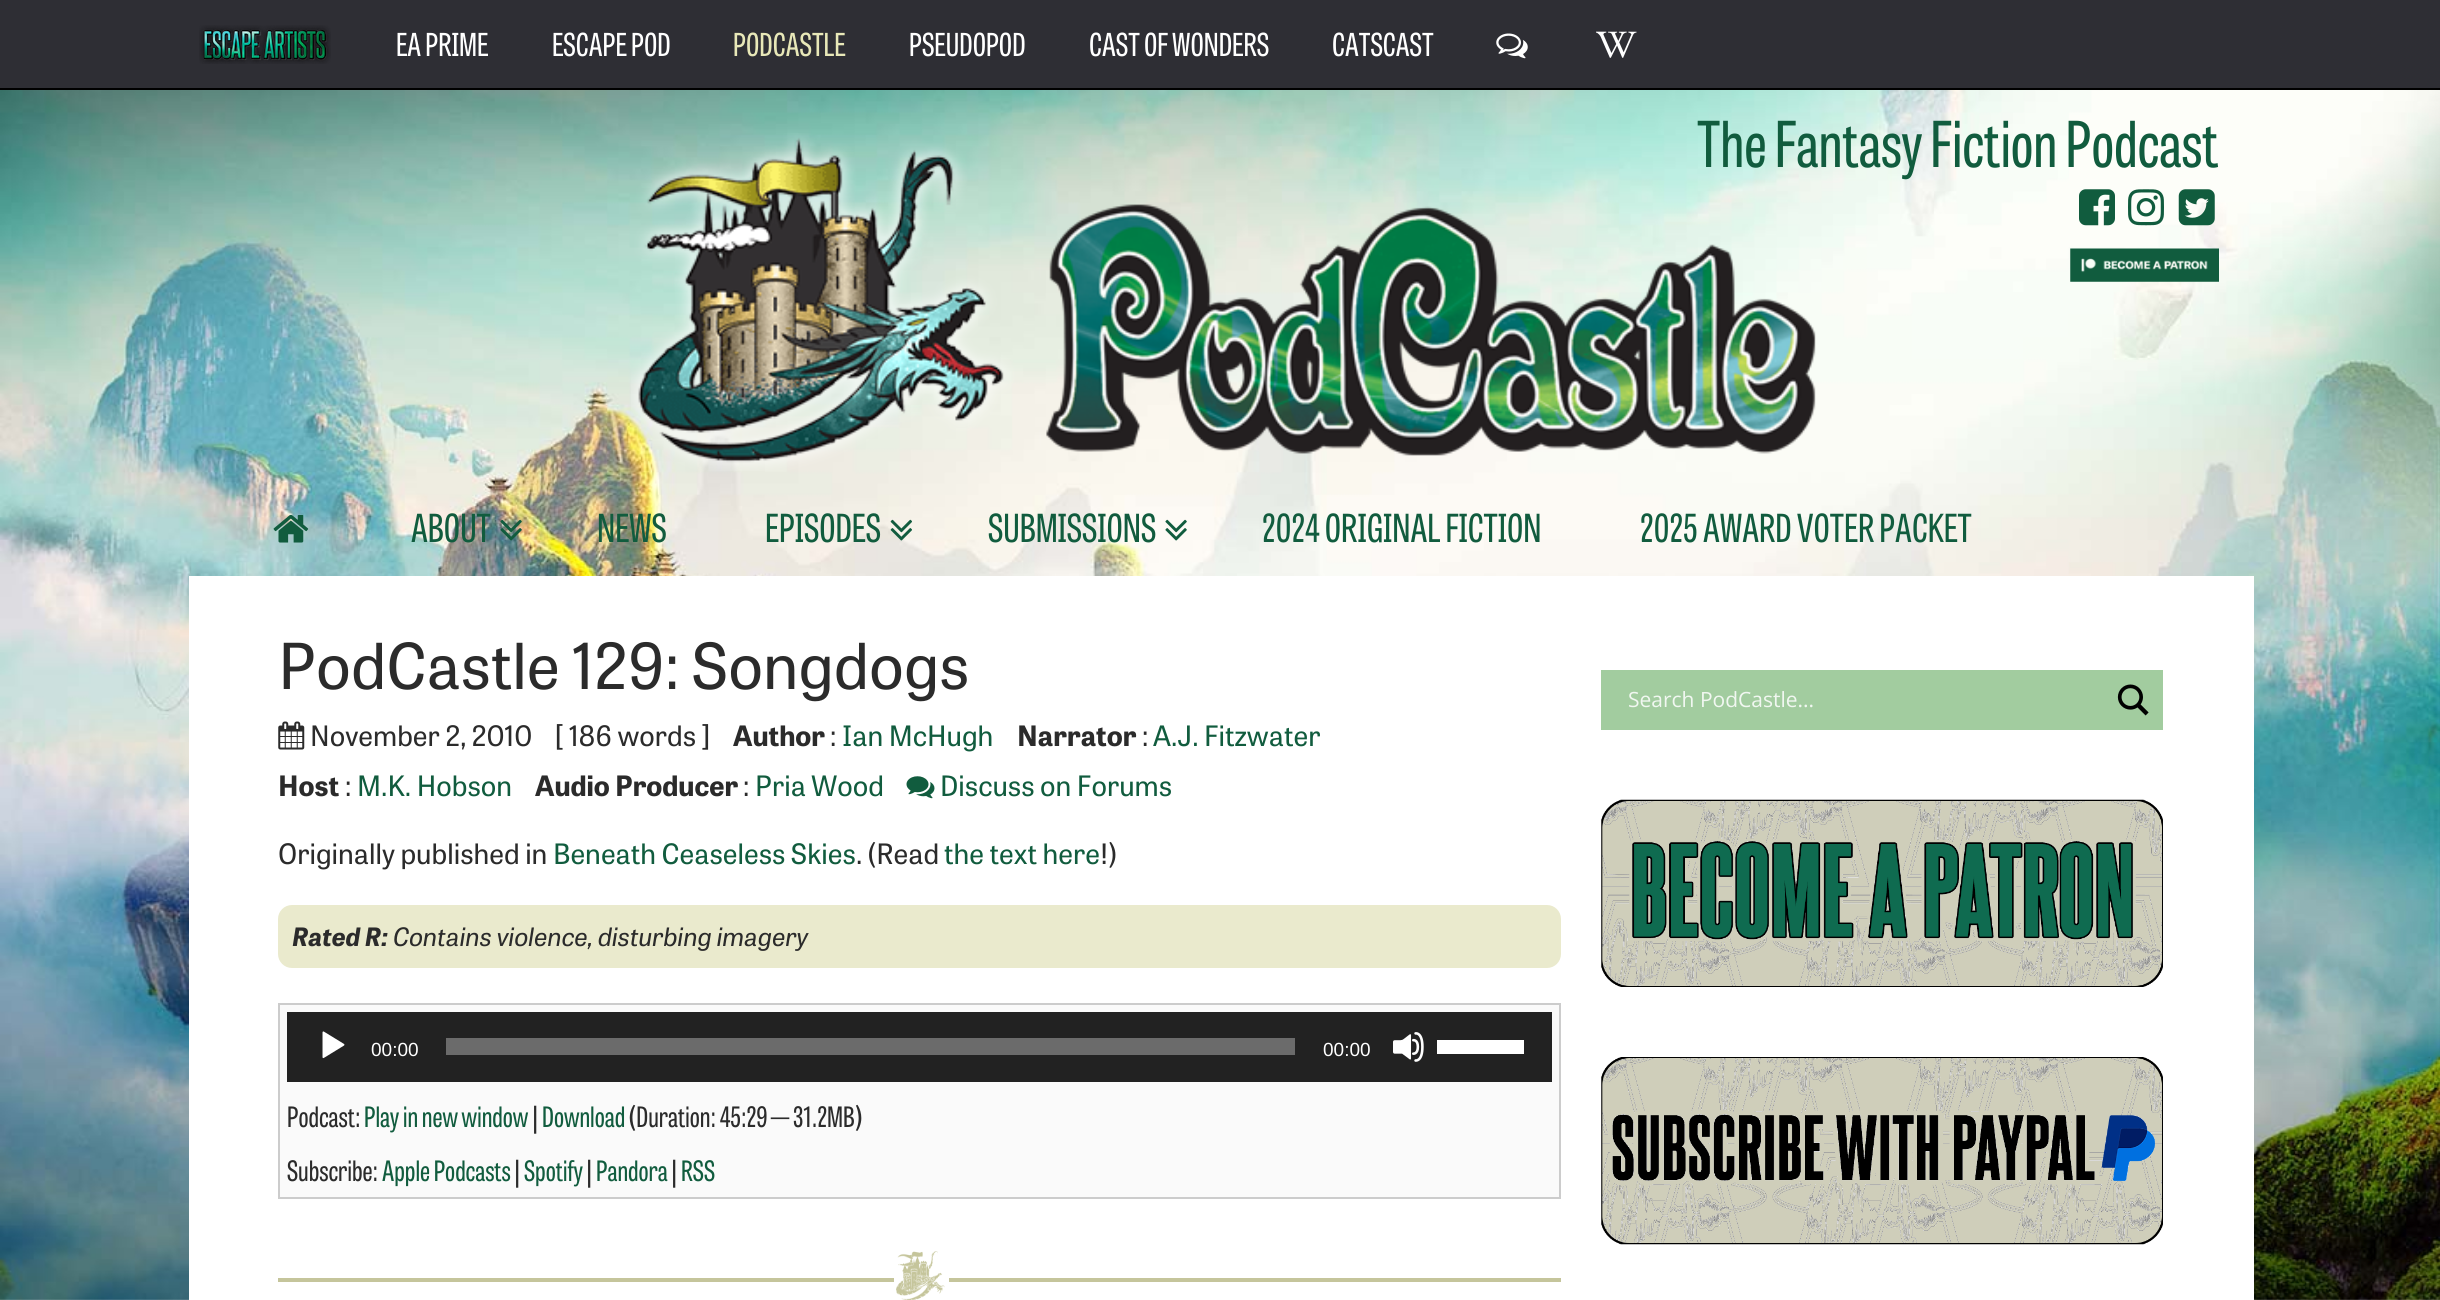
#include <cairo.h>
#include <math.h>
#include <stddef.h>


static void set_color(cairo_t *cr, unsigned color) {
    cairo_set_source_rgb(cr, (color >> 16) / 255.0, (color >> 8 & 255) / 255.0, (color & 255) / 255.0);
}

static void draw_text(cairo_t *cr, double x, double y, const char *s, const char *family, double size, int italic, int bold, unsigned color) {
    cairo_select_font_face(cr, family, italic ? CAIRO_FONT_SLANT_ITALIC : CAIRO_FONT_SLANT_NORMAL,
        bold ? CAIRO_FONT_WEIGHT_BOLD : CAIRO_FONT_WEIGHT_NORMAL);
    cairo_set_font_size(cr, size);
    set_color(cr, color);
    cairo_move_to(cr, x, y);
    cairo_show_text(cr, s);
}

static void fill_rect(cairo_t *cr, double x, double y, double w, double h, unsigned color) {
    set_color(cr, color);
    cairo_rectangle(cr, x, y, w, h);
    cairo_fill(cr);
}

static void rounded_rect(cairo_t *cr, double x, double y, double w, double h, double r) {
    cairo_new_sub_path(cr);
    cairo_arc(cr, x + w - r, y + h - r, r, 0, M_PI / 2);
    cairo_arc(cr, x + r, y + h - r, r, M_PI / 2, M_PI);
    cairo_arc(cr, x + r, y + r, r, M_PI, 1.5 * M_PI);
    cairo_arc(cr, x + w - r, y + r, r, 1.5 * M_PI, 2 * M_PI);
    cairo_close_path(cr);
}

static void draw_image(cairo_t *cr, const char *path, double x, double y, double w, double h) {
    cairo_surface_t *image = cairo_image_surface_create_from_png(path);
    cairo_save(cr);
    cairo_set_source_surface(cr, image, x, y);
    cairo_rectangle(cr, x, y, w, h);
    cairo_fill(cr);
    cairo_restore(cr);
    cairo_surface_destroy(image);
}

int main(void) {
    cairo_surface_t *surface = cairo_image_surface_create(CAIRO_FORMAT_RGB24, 2440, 1300);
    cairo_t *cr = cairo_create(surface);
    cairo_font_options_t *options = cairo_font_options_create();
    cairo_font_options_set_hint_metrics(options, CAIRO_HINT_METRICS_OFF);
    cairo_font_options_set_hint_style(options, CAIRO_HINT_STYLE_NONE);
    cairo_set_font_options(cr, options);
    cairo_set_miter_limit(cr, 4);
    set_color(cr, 0xFFFFFF);
    cairo_paint(cr);
    draw_image(cr, "assets/img1.png", 0, 90, 2440, 1210);
    fill_rect(cr, 0, 0, 2440, 88, 0x2E2E34);
    fill_rect(cr, 0, 88, 2440, 2, 0x000000);
    draw_image(cr, "assets/img2.png", 199, 25, 132, 39);
    draw_text(cr, 396, 56, "EA PRIME", "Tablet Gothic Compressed", 31.5, 0, 0, 0xFFFFFF);
    draw_text(cr, 552, 56, "ESCAPE POD", "Tablet Gothic Compressed", 31.5, 0, 0, 0xFFFFFF);
    draw_text(cr, 733, 56, "PODCASTLE", "Tablet Gothic Compressed", 31.5, 0, 0, 0xE8E8B8);
    draw_text(cr, 909, 56, "PSEUDOPOD", "Tablet Gothic Compressed", 31.5, 0, 0, 0xFFFFFF);
    draw_text(cr, 1089, 56, "CAST OF WONDERS", "Tablet Gothic Compressed", 31.5, 0, 0, 0xFFFFFF);
    draw_text(cr, 1332, 56, "CATSCAST", "Tablet Gothic Compressed", 31.5, 0, 0, 0xFFFFFF);
    draw_image(cr, "assets/img3.png", 1496, 33, 32, 26);
    draw_image(cr, "assets/img4.png", 1596, 31, 41, 27);
    draw_image(cr, "assets/img5.png", 631, 133, 1185, 338);
    draw_text(cr, 1697, 167, "The Fantasy Fiction Podcast", "Tablet Gothic Compressed", 63, 0, 0, 0x115C3E);
    draw_image(cr, "assets/img6.png", 2079, 189, 36, 37);
    draw_image(cr, "assets/img7.png", 2128, 189, 36, 37);
    draw_image(cr, "assets/img8.png", 2178, 189, 37, 37);
    draw_image(cr, "assets/img9.png", 2070, 248, 149, 34);
    draw_image(cr, "assets/img10.png", 273, 515, 36, 28);
    draw_text(cr, 411, 542, "ABOUT", "Tablet Gothic Compressed", 38.5, 0, 0, 0x115C3E);
    draw_image(cr, "assets/img11.png", 500, 519, 22, 22);
    draw_text(cr, 597, 542, "NEWS", "Tablet Gothic Compressed", 38.5, 0, 0, 0x115C3E);
    draw_text(cr, 765, 542, "EPISODES", "Tablet Gothic Compressed", 38.5, 0, 0, 0x115C3E);
    draw_image(cr, "assets/img12.png", 890, 519, 22, 22);
    draw_text(cr, 988, 542, "SUBMISSIONS", "Tablet Gothic Compressed", 38.5, 0, 0, 0x115C3E);
    draw_image(cr, "assets/img13.png", 1165, 519, 22, 22);
    draw_text(cr, 1262, 542, "2024 ORIGINAL FICTION", "Tablet Gothic Compressed", 38.5, 0, 0, 0x115C3E);
    draw_text(cr, 1640, 542, "2025 AWARD VOTER PACKET", "Tablet Gothic Compressed", 38.5, 0, 0, 0x115C3E);
    fill_rect(cr, 189, 576, 2065, 724, 0xFFFFFF);
    draw_text(cr, 278, 689, "PodCastle 129: Songdogs", "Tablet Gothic", 63, 0, 0, 0x2B2B2B);
    draw_image(cr, "assets/img14.png", 278, 721, 27, 29);
    draw_text(cr, 310, 746, "November 2, 2010", "Tablet Gothic", 28, 0, 0, 0x2B2B2B);
    draw_text(cr, 555, 746, "[ 186 words ]", "Tablet Gothic", 28, 0, 0, 0x2B2B2B);
    draw_text(cr, 733, 746, "Author", "Tablet Gothic", 28, 0, 1, 0x2B2B2B);
    draw_text(cr, 830, 746, ":", "Tablet Gothic", 28, 0, 0, 0x2B2B2B);
    draw_text(cr, 842, 746, "Ian McHugh", "Tablet Gothic", 28, 0, 0, 0x115C3E);
    draw_text(cr, 1017, 746, "Narrator", "Tablet Gothic", 28, 0, 1, 0x2B2B2B);
    draw_text(cr, 1142, 746, ":", "Tablet Gothic", 28, 0, 0, 0x2B2B2B);
    draw_text(cr, 1153, 746, "A.J. Fitzwater", "Tablet Gothic", 28, 0, 0, 0x115C3E);
    draw_text(cr, 278, 796, "Host", "Tablet Gothic", 28, 0, 1, 0x2B2B2B);
    draw_text(cr, 345, 796, ":", "Tablet Gothic", 28, 0, 0, 0x2B2B2B);
    draw_text(cr, 357, 796, "M.K. Hobson", "Tablet Gothic", 28, 0, 0, 0x115C3E);
    draw_text(cr, 535, 796, "Audio Producer", "Tablet Gothic", 28, 0, 1, 0x2B2B2B);
    draw_text(cr, 743, 796, ":", "Tablet Gothic", 28, 0, 0, 0x2B2B2B);
    draw_text(cr, 755, 796, "Pria Wood", "Tablet Gothic", 28, 0, 0, 0x115C3E);
    draw_image(cr, "assets/img15.png", 906, 776, 29, 23);
    draw_text(cr, 940, 796, "Discuss on Forums", "Tablet Gothic", 28, 0, 0, 0x115C3E);
    draw_text(cr, 278, 864, "Originally published in", "Tablet Gothic", 28, 0, 0, 0x2B2B2B);
    draw_text(cr, 553, 864, "Beneath Ceaseless Skies", "Tablet Gothic", 28, 0, 0, 0x115C3E);
    draw_text(cr, 856, 864, ". (Read", "Tablet Gothic", 28, 0, 0, 0x2B2B2B);
    draw_text(cr, 944, 864, "the text here", "Tablet Gothic", 28, 0, 0, 0x115C3E);
    draw_text(cr, 1100, 864, "!)", "Tablet Gothic", 28, 0, 0, 0x2B2B2B);
    set_color(cr, 0xEAEACD);
    rounded_rect(cr, 278, 905, 1283, 63, 14);
    cairo_fill(cr);
    draw_text(cr, 292, 946, "Rated R:", "Tablet Gothic", 25.25, 1, 1, 0x2B2B2B);
    draw_text(cr, 393, 946, "Contains violence, disturbing imagery", "Tablet Gothic", 25.25, 1, 0, 0x2B2B2B);
    set_color(cr, 0xFAFAFA);
    cairo_rectangle(cr, 279, 1004, 1281, 194);
    cairo_fill_preserve(cr);
    set_color(cr, 0xCCCCCC);
    cairo_stroke(cr);
    fill_rect(cr, 287, 1012, 1265, 70, 0x222222);
    draw_image(cr, "assets/img16.png", 322, 1031, 23, 28);
    draw_text(cr, 371, 1056, "00:00", "Liberation Sans", 19, 0, 0, 0xFFFFFF);
    fill_rect(cr, 446, 1038, 849, 17, 0x6B6B6B);
    draw_text(cr, 1323, 1056, "00:00", "Liberation Sans", 19, 0, 0, 0xFFFFFF);
    draw_image(cr, "assets/img17.png", 1393, 1032, 31, 30);
    fill_rect(cr, 1437, 1040, 87, 14, 0xFFFFFF);
    draw_text(cr, 287, 1127, "Podcast:", "Tablet Gothic Compressed", 28, 0, 0, 0x2B2B2B);
    draw_text(cr, 364, 1127, "Play in new window", "Tablet Gothic Compressed", 28, 0, 0, 0x115C3E);
    draw_text(cr, 532, 1127, "|", "Tablet Gothic Compressed", 28, 0, 0, 0x2B2B2B);
    draw_text(cr, 542, 1127, "Download", "Tablet Gothic Compressed", 28, 0, 0, 0x115C3E);
    draw_text(cr, 628, 1127, "(Duration: 45:29 — 31.2MB)", "Tablet Gothic Compressed", 28, 0, 0, 0x2B2B2B);
    draw_text(cr, 287, 1181, "Subscribe:", "Tablet Gothic Compressed", 28, 0, 0, 0x2B2B2B);
    draw_text(cr, 382, 1181, "Apple Podcasts", "Tablet Gothic Compressed", 28, 0, 0, 0x115C3E);
    draw_text(cr, 514, 1181, "|", "Tablet Gothic Compressed", 28, 0, 0, 0x2B2B2B);
    draw_text(cr, 524, 1181, "Spotify", "Tablet Gothic Compressed", 28, 0, 0, 0x115C3E);
    draw_text(cr, 586, 1181, "|", "Tablet Gothic Compressed", 28, 0, 0, 0x2B2B2B);
    draw_text(cr, 596, 1181, "Pandora", "Tablet Gothic Compressed", 28, 0, 0, 0x115C3E);
    draw_text(cr, 671, 1181, "|", "Tablet Gothic Compressed", 28, 0, 0, 0x2B2B2B);
    draw_text(cr, 681, 1181, "RSS", "Tablet Gothic Compressed", 28, 0, 0, 0x115C3E);
    draw_image(cr, "assets/img18.png", 896, 1251, 49, 49);
    fill_rect(cr, 278, 1278, 616, 4, 0xC5C59B);
    fill_rect(cr, 949, 1278, 612, 4, 0xC5C59B);
    fill_rect(cr, 1601, 670, 562, 60, 0xA2CC9F);
    draw_text(cr, 1628, 707, "Search PodCastle...", "Open Sans", 21, 0, 0, 0xF1F7F1);
    draw_image(cr, "assets/img19.png", 2117, 684, 32, 32);
    draw_image(cr, "assets/img20.png", 1601, 799, 562, 188);
    draw_image(cr, "assets/img21.png", 1601, 1057, 562, 188);
    cairo_surface_write_to_png(surface, "output.png");
    cairo_font_options_destroy(options);
    cairo_destroy(cr);
    cairo_surface_destroy(surface);
    return 0;
}
